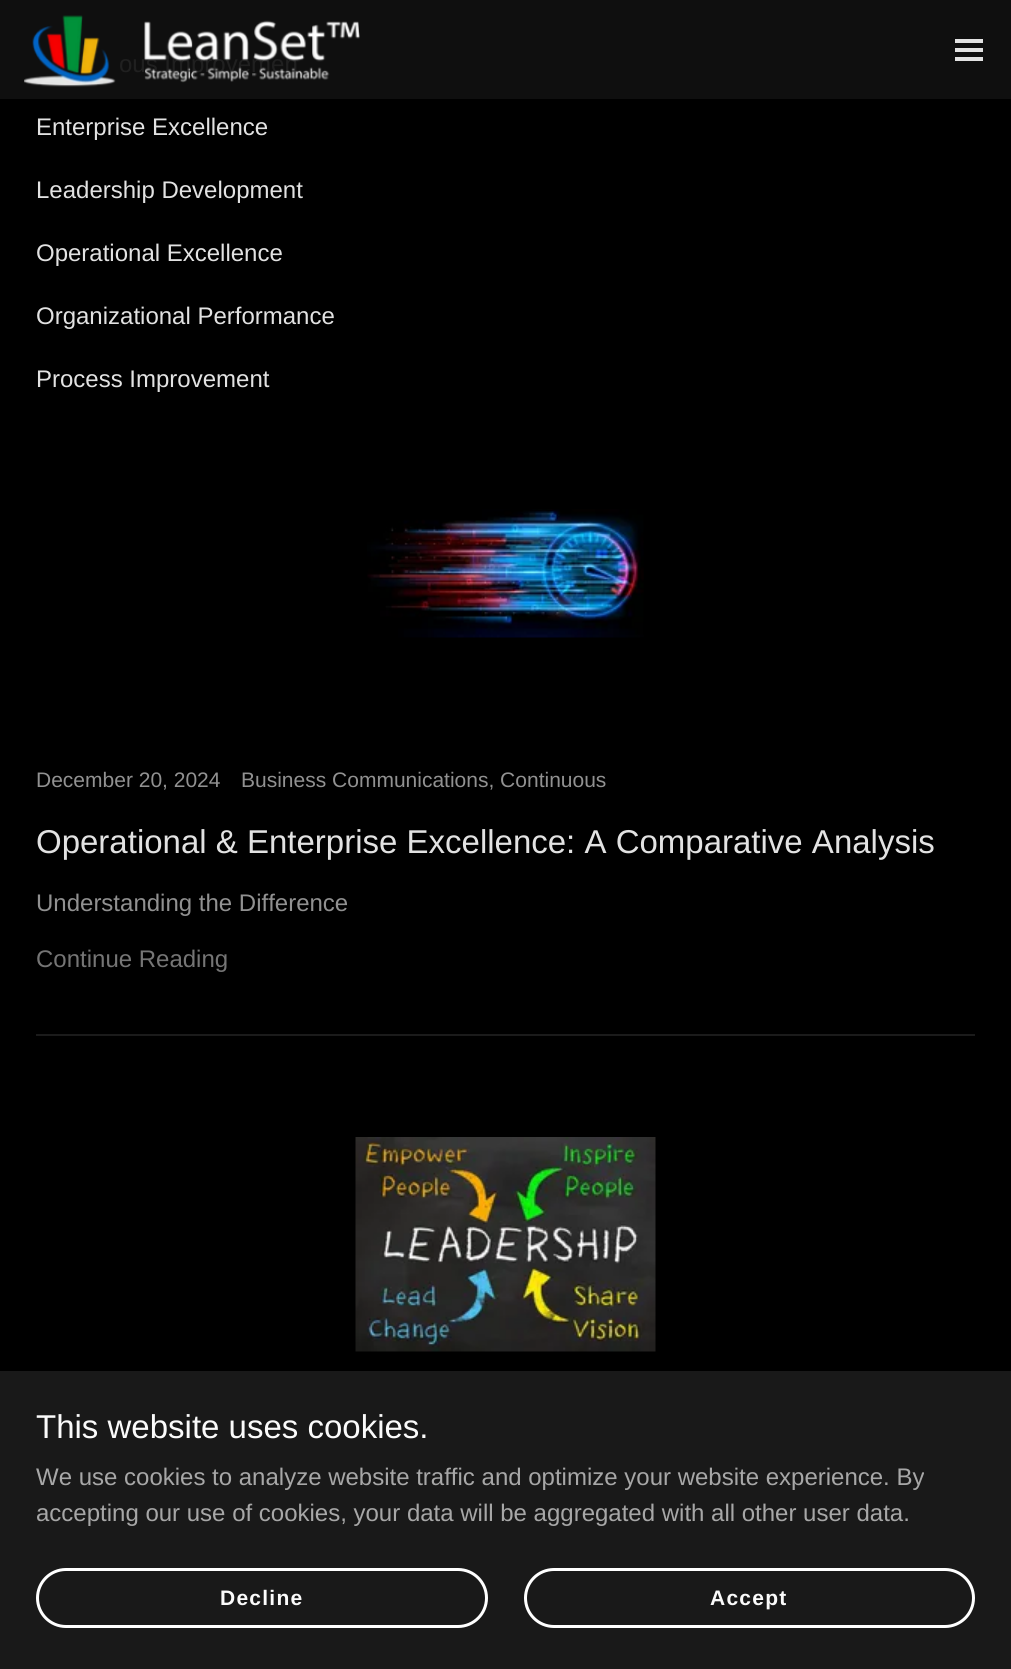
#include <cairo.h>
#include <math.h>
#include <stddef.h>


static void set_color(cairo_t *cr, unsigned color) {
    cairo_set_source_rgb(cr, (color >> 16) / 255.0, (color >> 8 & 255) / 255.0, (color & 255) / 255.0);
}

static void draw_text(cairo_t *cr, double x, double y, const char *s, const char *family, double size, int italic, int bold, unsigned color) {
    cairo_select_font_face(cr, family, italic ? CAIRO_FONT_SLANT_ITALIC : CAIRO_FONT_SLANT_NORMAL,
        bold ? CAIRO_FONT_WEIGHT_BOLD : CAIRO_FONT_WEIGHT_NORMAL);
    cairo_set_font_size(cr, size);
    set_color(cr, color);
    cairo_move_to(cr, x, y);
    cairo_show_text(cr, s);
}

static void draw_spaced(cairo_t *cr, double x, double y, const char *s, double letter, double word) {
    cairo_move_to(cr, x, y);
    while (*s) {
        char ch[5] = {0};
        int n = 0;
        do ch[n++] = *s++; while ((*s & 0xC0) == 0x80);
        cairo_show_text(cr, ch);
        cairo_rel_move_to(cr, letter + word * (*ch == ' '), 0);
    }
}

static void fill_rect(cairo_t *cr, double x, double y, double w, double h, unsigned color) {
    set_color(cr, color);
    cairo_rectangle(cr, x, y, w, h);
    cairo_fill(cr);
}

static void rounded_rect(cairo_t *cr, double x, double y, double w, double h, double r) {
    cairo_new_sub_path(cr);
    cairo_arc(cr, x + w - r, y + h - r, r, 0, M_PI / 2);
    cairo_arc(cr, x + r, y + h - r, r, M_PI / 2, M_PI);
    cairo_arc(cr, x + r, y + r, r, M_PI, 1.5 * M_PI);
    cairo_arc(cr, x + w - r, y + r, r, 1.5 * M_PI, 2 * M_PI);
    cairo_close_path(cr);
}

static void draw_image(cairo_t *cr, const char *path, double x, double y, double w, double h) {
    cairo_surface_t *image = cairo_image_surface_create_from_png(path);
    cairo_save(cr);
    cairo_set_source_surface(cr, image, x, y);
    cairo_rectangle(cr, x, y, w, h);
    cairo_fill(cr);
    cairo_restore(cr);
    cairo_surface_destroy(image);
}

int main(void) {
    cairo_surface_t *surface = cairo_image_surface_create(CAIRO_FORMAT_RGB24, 1011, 1669);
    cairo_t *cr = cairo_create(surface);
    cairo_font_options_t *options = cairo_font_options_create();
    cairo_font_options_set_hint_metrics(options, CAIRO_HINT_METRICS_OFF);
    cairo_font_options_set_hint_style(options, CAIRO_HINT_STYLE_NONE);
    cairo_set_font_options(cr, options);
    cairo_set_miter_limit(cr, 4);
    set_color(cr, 0x000000);
    cairo_paint(cr);
    fill_rect(cr, 0, 0, 1011, 99, 0x0F0F0F);
    draw_text(cr, 119, 72, "ous Improvemen", "Liberation Sans", 24, 0, 0, 0x202020);
    draw_image(cr, "assets/img1.png", 24, 15, 336, 72);
    fill_rect(cr, 955, 39, 28, 4, 0xE2E2E2);
    fill_rect(cr, 955, 48, 28, 4, 0xE2E2E2);
    fill_rect(cr, 955, 57, 28, 4, 0xE2E2E2);
    draw_text(cr, 36, 135, "Enterprise Excellence", "Liberation Sans", 24, 0, 0, 0xE2E2E2);
    draw_text(cr, 36, 198, "Leadership Development", "Liberation Sans", 24, 0, 0, 0xE2E2E2);
    draw_text(cr, 36, 261, "Operational Excellence", "Liberation Sans", 24, 0, 0, 0xE2E2E2);
    draw_text(cr, 36, 324, "Organizational Performance", "Liberation Sans", 24, 0, 0, 0xE2E2E2);
    draw_text(cr, 36, 387, "Process Improvement", "Liberation Sans", 24, 0, 0, 0xE2E2E2);
    fill_rect(cr, 36, 1034, 939, 2, 0x1B1B1B);
    draw_image(cr, "assets/img2.png", 367, 509, 277, 129);
    draw_text(cr, 36, 787, "December 20, 2024", "Liberation Sans", 21, 0, 0, 0x919191);
    draw_text(cr, 241, 787, "Business Communications, Continuous", "Liberation Sans", 21, 0, 0, 0x919191);
    draw_text(cr, 36, 853, "Operational & Enterprise Excellence: A Comparative Analysis", "Liberation Sans", 33, 0, 0, 0xE2E2E2);
    draw_text(cr, 36, 911, "Understanding the Difference", "Liberation Sans", 24, 0, 0, 0x919191);
    draw_text(cr, 36, 967, "Continue Reading", "Liberation Sans", 24, 0, 0, 0x757575);
    draw_image(cr, "assets/img3.png", 355, 1137, 301, 215);
    fill_rect(cr, 0, 1371, 1011, 298, 0x191919);
    draw_text(cr, 36, 1438, "This website uses cookies.", "Liberation Sans", 33, 0, 0, 0xFBFBFB);
    draw_text(cr, 36, 1485, "We use cookies to analyze website traffic and optimize your website experience. By", "Liberation Sans", 24, 0, 0, 0xA7A7A7);
    draw_text(cr, 36, 1521, "accepting our use of cookies, your data will be aggregated with all other user data.", "Liberation Sans", 24, 0, 0, 0xA7A7A7);
    rounded_rect(cr, 37.5, 1569.5, 449, 57, 28.5);
    set_color(cr, 0xFFFFFF);
    cairo_set_line_width(cr, 3);
    cairo_stroke(cr);
    cairo_select_font_face(cr, "Liberation Sans", CAIRO_FONT_SLANT_NORMAL, CAIRO_FONT_WEIGHT_BOLD);
    cairo_set_font_size(cr, 21);
    set_color(cr, 0xFBFBFB);
    draw_spaced(cr, 220, 1605, "Decline", 1.25, 0);
    rounded_rect(cr, 525.5, 1569.5, 448, 57, 28.5);
    set_color(cr, 0xFFFFFF);
    cairo_stroke(cr);
    set_color(cr, 0xFBFBFB);
    draw_spaced(cr, 710, 1605, "Accept", 1.25, 0);
    cairo_surface_write_to_png(surface, "output.png");
    cairo_font_options_destroy(options);
    cairo_destroy(cr);
    cairo_surface_destroy(surface);
    return 0;
}
